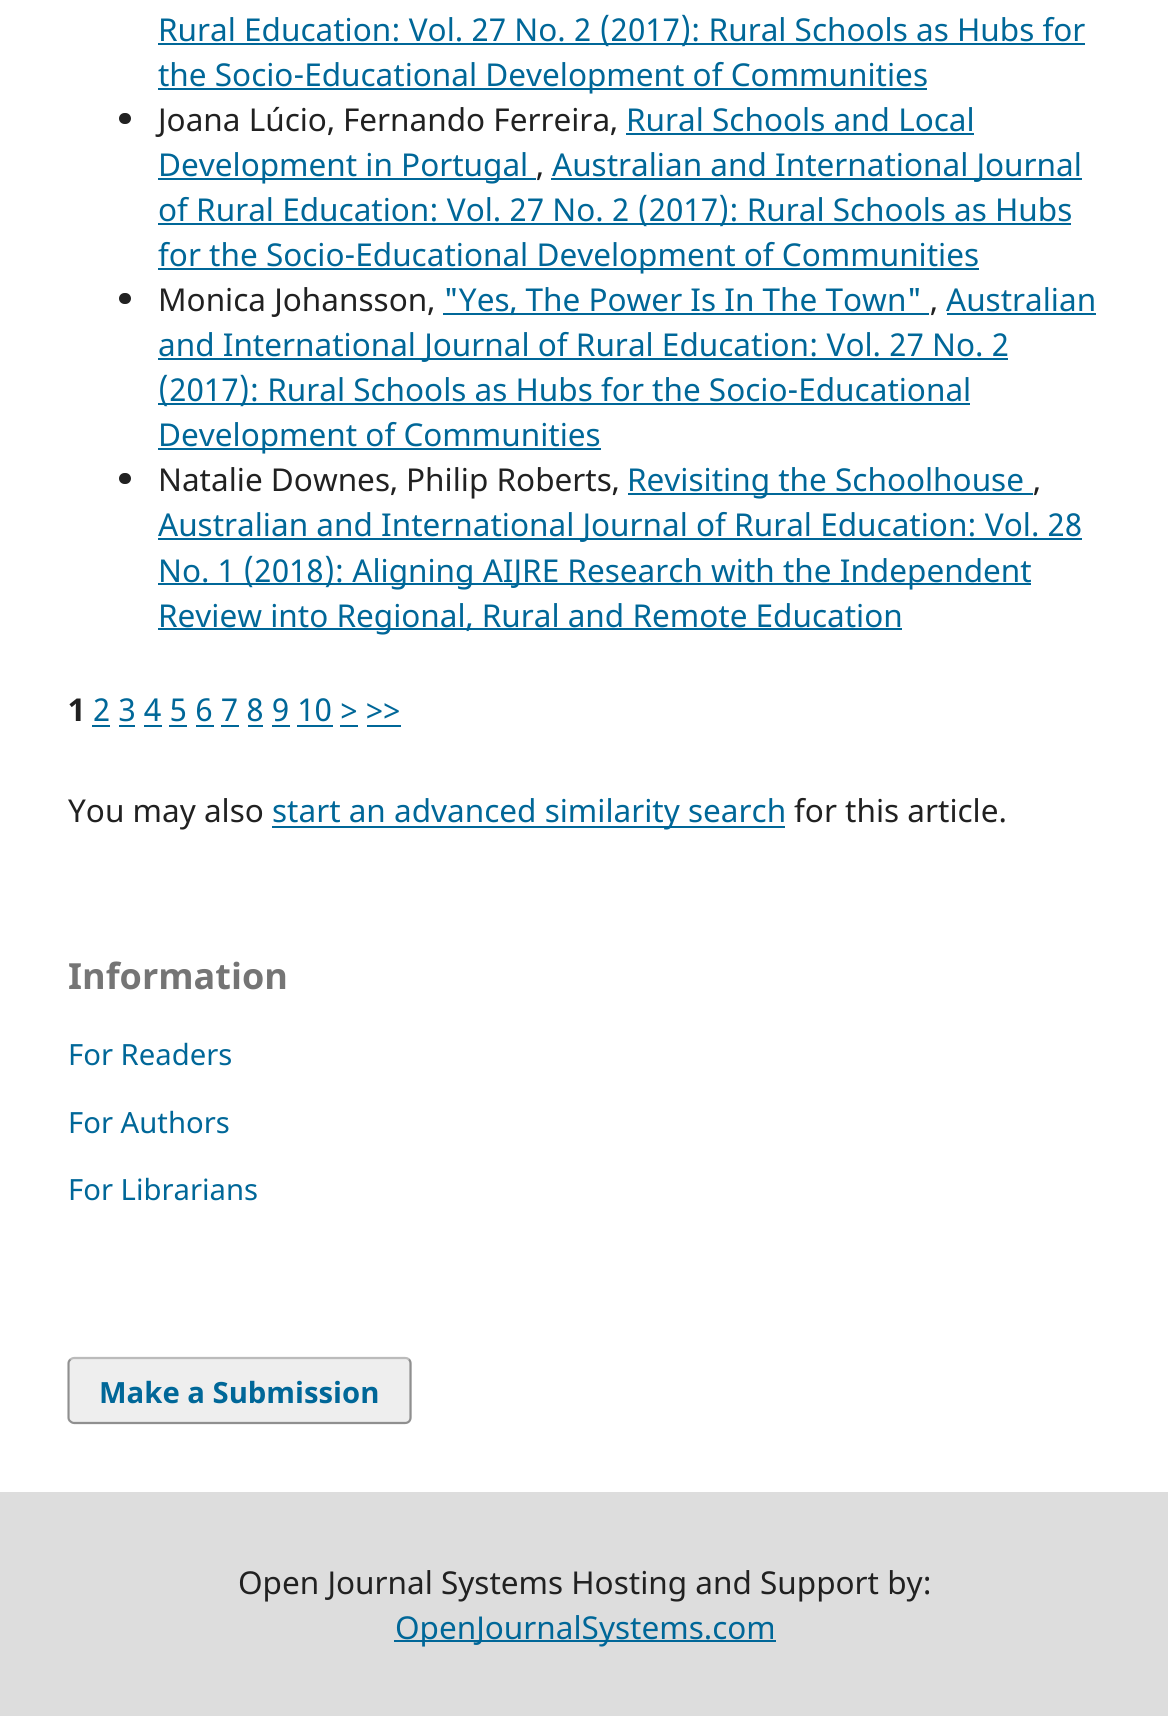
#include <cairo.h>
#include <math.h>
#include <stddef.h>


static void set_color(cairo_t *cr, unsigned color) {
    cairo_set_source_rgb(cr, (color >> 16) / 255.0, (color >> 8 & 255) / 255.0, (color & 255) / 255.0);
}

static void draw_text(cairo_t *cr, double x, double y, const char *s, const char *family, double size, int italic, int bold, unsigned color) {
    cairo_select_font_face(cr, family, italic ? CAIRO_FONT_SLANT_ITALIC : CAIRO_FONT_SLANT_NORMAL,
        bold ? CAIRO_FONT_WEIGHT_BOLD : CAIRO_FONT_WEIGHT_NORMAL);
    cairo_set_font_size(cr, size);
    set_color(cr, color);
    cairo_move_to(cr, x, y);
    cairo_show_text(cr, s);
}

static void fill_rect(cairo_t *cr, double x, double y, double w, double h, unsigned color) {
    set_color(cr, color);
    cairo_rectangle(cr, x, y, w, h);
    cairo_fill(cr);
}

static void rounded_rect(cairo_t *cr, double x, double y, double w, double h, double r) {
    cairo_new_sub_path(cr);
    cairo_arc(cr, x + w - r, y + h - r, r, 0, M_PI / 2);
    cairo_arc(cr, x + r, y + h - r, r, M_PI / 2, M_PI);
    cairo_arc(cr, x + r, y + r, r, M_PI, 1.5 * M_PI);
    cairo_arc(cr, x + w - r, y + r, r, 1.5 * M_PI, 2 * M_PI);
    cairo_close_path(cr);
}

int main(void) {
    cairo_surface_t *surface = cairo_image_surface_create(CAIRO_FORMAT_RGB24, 1168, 1716);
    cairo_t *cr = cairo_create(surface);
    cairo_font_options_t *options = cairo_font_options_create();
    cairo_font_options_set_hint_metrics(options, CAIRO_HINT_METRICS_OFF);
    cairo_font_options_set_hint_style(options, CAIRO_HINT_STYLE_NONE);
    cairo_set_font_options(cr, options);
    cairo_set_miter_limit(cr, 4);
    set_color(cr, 0xFFFFFF);
    cairo_paint(cr);
    fill_rect(cr, 158, 43, 927, 2, 0x006798);
    draw_text(cr, 158, 41, "Rural Education: Vol. 27 No. 2 (2017): Rural Schools as Hubs for", "Noto Sans", 31.5, 0, 0, 0x006798);
    fill_rect(cr, 158, 88, 769, 2, 0x006798);
    draw_text(cr, 158, 86, "the Socio-Educational Development of Communities", "Noto Sans", 31.5, 0, 0, 0x006798);
    set_color(cr, 0x212121);
    rounded_rect(cr, 119, 113, 12, 11, 5.5);
    cairo_fill(cr);
    draw_text(cr, 158, 131, "Joana Lúcio, Fernando Ferreira,", "Noto Sans", 31.5, 0, 0, 0x212121);
    draw_text(cr, 626, 131, "Rural Schools and Local", "Noto Sans", 31.5, 0, 0, 0x006798);
    fill_rect(cr, 626, 133, 348, 2, 0x006798);
    fill_rect(cr, 158, 178, 378, 2, 0x006798);
    draw_text(cr, 158, 176, "Development in Portugal", "Noto Sans", 31.5, 0, 0, 0x006798);
    draw_text(cr, 536, 176, ",", "Noto Sans", 31.5, 0, 0, 0x212121);
    fill_rect(cr, 551, 178, 531, 2, 0x006798);
    draw_text(cr, 552, 176, "Australian and International Journal", "Noto Sans", 31.5, 0, 0, 0x006798);
    fill_rect(cr, 158, 223, 913, 2, 0x006798);
    draw_text(cr, 158, 221, "of Rural Education: Vol. 27 No. 2 (2017): Rural Schools as Hubs", "Noto Sans", 31.5, 0, 0, 0x006798);
    fill_rect(cr, 158, 268, 821, 2, 0x006798);
    draw_text(cr, 158, 266, "for the Socio-Educational Development of Communities", "Noto Sans", 31.5, 0, 0, 0x006798);
    set_color(cr, 0x212121);
    rounded_rect(cr, 119, 293, 12, 11, 5.5);
    cairo_fill(cr);
    draw_text(cr, 158, 311, "Monica Johansson,", "Noto Sans", 31.5, 0, 0, 0x212121);
    fill_rect(cr, 443, 313, 486, 2, 0x006798);
    draw_text(cr, 443, 311, "\"Yes, The Power Is In The Town\"", "Noto Sans", 31.5, 0, 0, 0x006798);
    draw_text(cr, 946, 311, "Australian", "Noto Sans", 31.5, 0, 0, 0x006798);
    fill_rect(cr, 947, 313, 149, 2, 0x006798);
    draw_text(cr, 930, 311, ",", "Noto Sans", 31.5, 0, 0, 0x212121);
    fill_rect(cr, 158, 358, 850, 2, 0x006798);
    draw_text(cr, 158, 356, "and International Journal of Rural Education: Vol. 27 No. 2", "Noto Sans", 31.5, 0, 0, 0x006798);
    fill_rect(cr, 158, 403, 812, 2, 0x006798);
    draw_text(cr, 158, 401, "(2017): Rural Schools as Hubs for the Socio-Educational", "Noto Sans", 31.5, 0, 0, 0x006798);
    fill_rect(cr, 158, 448, 443, 2, 0x006798);
    draw_text(cr, 158, 446, "Development of Communities", "Noto Sans", 31.5, 0, 0, 0x006798);
    set_color(cr, 0x212121);
    rounded_rect(cr, 119, 473, 12, 11, 5.5);
    cairo_fill(cr);
    draw_text(cr, 158, 491, "Natalie Downes, Philip Roberts,", "Noto Sans", 31.5, 0, 0, 0x212121);
    fill_rect(cr, 628, 493, 405, 2, 0x006798);
    draw_text(cr, 627, 491, "Revisiting the Schoolhouse", "Noto Sans", 31.5, 0, 0, 0x006798);
    draw_text(cr, 1033, 491, ",", "Noto Sans", 31.5, 0, 0, 0x212121);
    fill_rect(cr, 158, 538, 924, 2, 0x006798);
    draw_text(cr, 158, 536, "Australian and International Journal of Rural Education: Vol. 28", "Noto Sans", 31.5, 0, 0, 0x006798);
    fill_rect(cr, 158, 583, 873, 2, 0x006798);
    draw_text(cr, 158, 582, "No. 1 (2018): Aligning AIJRE Research with the Independent", "Noto Sans", 31.5, 0, 0, 0x006798);
    fill_rect(cr, 158, 628, 744, 2, 0x006798);
    draw_text(cr, 158, 627, "Review into Regional, Rural and Remote Education", "Noto Sans", 31.5, 0, 0, 0x006798);
    draw_text(cr, 68, 721, "1", "Noto Sans", 31.5, 0, 1, 0x212121);
    draw_text(cr, 93, 721, "2 3 4 5 6 7 8 9 10 > >>", "Noto Sans", 31.5, 0, 0, 0x006798);
    fill_rect(cr, 92, 725, 18, 2, 0x006798);
    fill_rect(cr, 119, 725, 16, 2, 0x006798);
    fill_rect(cr, 144, 725, 18, 2, 0x006798);
    fill_rect(cr, 169, 725, 18, 2, 0x006798);
    fill_rect(cr, 196, 725, 18, 2, 0x006798);
    fill_rect(cr, 221, 725, 18, 2, 0x006798);
    fill_rect(cr, 248, 725, 15, 2, 0x006798);
    fill_rect(cr, 272, 725, 18, 2, 0x006798);
    fill_rect(cr, 297, 725, 36, 2, 0x006798);
    fill_rect(cr, 340, 725, 18, 2, 0x006798);
    fill_rect(cr, 367, 725, 34, 2, 0x006798);
    draw_text(cr, 68, 822, "You may also", "Noto Sans", 31.5, 0, 0, 0x212121);
    fill_rect(cr, 272, 826, 513, 2, 0x006798);
    draw_text(cr, 272, 822, "start an advanced similarity search", "Noto Sans", 31.5, 0, 0, 0x006798);
    draw_text(cr, 794, 822, "for this article.", "Noto Sans", 31.5, 0, 0, 0x212121);
    draw_text(cr, 68, 989, "Information", "Noto Sans", 36, 0, 1, 0x757575);
    draw_text(cr, 68, 1065, "For Readers", "Noto Sans", 29.25, 0, 0, 0x006798);
    draw_text(cr, 68, 1133, "For Authors", "Noto Sans", 29.25, 0, 0, 0x006798);
    draw_text(cr, 68, 1200, "For Librarians", "Noto Sans", 29.25, 0, 0, 0x006798);
    set_color(cr, 0xEEEEEE);
    rounded_rect(cr, 68, 1357, 344, 67, 7);
    cairo_fill(cr);
    cairo_new_path(cr);
    cairo_move_to(cr, 70.5, 1359.5);
    cairo_curve_to(cr, 71.5, 1358.5, 73, 1358, 74, 1358);
    cairo_line_to(cr, 405, 1358);
    cairo_curve_to(cr, 406.5, 1358, 408, 1358.5, 409, 1359.5);
    set_color(cr, 0xBBBBBB);
    cairo_set_line_width(cr, 2.2);
    cairo_stroke(cr);
    cairo_new_path(cr);
    cairo_move_to(cr, 409, 1359.5);
    cairo_curve_to(cr, 410, 1360.5, 410.5, 1362, 410.5, 1363.5);
    cairo_line_to(cr, 410.5, 1417.5);
    cairo_curve_to(cr, 410.5, 1419, 410, 1420.5, 409, 1421.5);
    cairo_curve_to(cr, 408, 1422.5, 406.5, 1423, 405, 1423);
    cairo_line_to(cr, 74, 1423);
    cairo_curve_to(cr, 73, 1423, 71.5, 1422.5, 70.5, 1421.5);
    cairo_curve_to(cr, 69, 1420.5, 68.5, 1419, 68.5, 1417.5);
    cairo_line_to(cr, 68.5, 1363.5);
    cairo_curve_to(cr, 68.5, 1362, 69, 1360.5, 70.5, 1359.5);
    cairo_set_source_rgba(cr, 0, 0, 0, 0.4);
    cairo_stroke(cr);
    draw_text(cr, 99, 1403, "Make a Submission", "Noto Sans", 29.25, 0, 1, 0x006798);
    fill_rect(cr, 0, 1492, 1168, 224, 0xDDDDDD);
    draw_text(cr, 238, 1594, "Open Journal Systems Hosting and Support by:", "Noto Sans", 31.5, 0, 0, 0x212121);
    fill_rect(cr, 394, 1640, 382, 2, 0x006798);
    draw_text(cr, 395, 1639, "OpenJournalSystems.com", "Noto Sans", 31.5, 0, 0, 0x006798);
    cairo_surface_write_to_png(surface, "output.png");
    cairo_font_options_destroy(options);
    cairo_destroy(cr);
    cairo_surface_destroy(surface);
    return 0;
}
